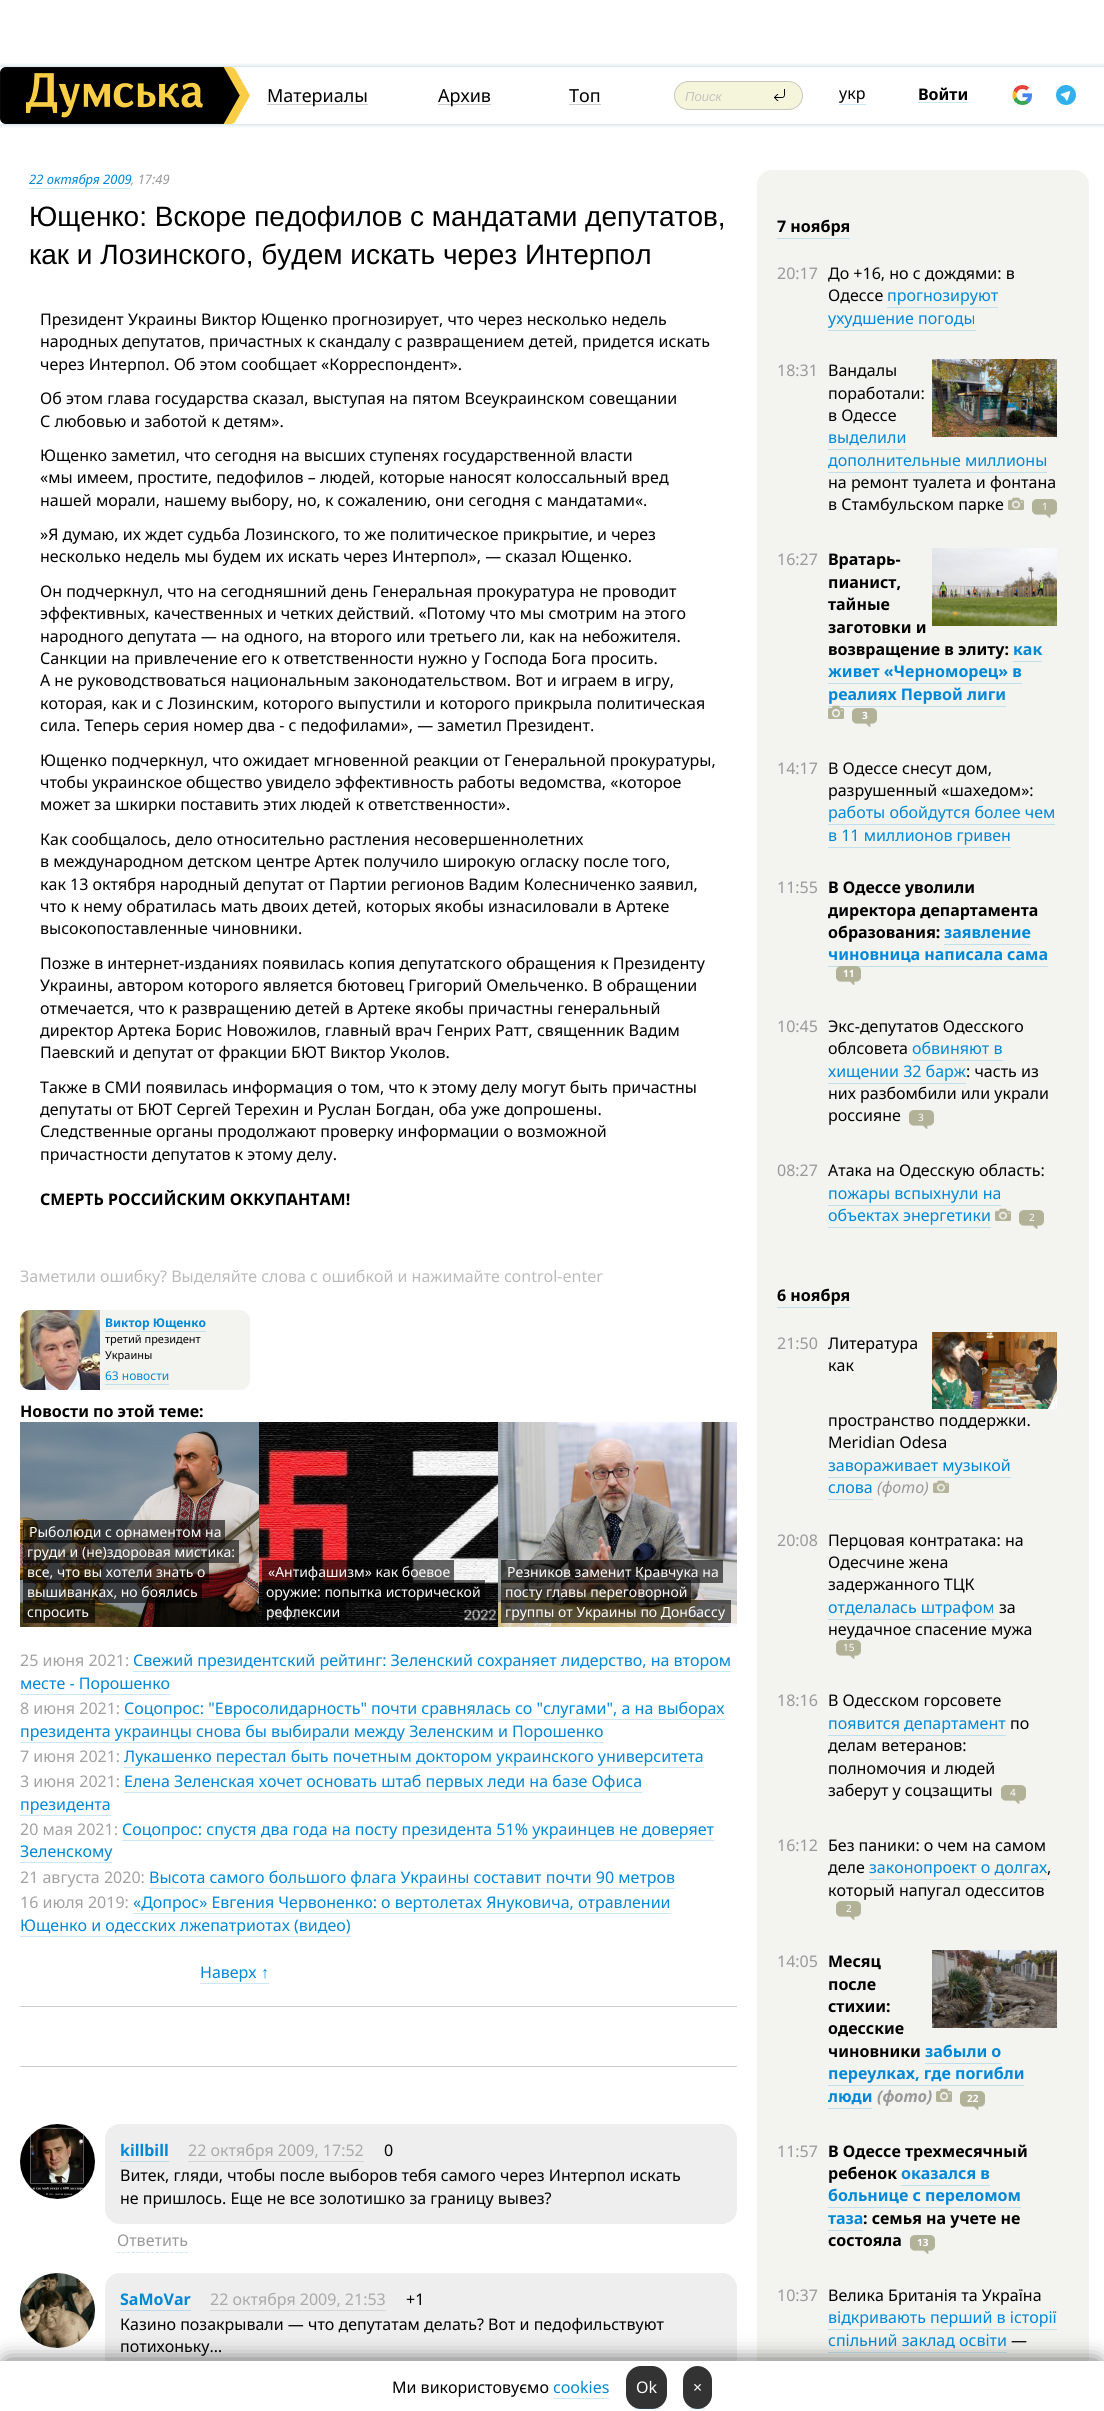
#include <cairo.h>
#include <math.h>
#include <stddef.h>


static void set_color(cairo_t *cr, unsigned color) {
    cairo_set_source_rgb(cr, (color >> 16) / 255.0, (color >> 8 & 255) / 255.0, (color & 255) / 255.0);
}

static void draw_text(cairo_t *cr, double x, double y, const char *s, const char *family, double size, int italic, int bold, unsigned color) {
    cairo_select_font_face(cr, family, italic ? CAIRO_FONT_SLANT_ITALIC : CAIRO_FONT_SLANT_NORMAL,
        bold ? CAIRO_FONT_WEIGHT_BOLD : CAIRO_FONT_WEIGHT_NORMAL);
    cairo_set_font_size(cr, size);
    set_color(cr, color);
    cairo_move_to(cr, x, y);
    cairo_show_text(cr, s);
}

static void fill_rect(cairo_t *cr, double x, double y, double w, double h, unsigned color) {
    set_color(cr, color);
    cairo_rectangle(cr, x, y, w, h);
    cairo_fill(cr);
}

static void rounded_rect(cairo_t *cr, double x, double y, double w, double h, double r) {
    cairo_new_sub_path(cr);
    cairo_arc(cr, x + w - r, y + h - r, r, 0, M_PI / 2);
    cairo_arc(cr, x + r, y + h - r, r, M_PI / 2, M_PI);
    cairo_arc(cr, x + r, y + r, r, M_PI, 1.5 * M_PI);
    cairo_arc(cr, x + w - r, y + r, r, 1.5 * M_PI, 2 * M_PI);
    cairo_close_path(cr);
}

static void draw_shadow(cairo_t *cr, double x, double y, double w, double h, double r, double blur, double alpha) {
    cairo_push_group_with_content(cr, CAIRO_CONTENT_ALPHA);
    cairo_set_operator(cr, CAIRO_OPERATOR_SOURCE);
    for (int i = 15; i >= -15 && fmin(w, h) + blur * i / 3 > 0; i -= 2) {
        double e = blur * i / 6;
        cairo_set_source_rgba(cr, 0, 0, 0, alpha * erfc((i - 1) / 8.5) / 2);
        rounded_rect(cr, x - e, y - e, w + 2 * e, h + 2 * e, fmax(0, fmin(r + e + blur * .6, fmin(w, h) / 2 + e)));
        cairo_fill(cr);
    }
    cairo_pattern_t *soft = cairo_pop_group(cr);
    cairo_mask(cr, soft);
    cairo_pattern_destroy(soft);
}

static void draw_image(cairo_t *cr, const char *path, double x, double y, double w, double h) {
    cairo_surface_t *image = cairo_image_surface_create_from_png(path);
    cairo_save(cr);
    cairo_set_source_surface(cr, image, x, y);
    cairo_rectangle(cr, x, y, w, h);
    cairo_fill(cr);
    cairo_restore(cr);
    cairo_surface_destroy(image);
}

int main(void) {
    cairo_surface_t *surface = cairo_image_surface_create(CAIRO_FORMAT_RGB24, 1104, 2411);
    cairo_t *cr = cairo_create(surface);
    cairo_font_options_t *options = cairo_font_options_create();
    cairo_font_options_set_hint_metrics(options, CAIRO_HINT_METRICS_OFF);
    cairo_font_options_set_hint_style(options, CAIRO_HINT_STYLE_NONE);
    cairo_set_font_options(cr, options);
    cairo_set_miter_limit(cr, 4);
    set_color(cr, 0xFFFFFF);
    cairo_paint(cr);
    cairo_save(cr);
    cairo_set_fill_rule(cr, CAIRO_FILL_RULE_EVEN_ODD);
    cairo_new_path(cr);
    cairo_move_to(cr, 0, 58);
    cairo_line_to(cr, 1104, 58);
    cairo_line_to(cr, 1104, 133);
    cairo_line_to(cr, 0, 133);
    cairo_close_path(cr);
    cairo_move_to(cr, 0, 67);
    cairo_line_to(cr, 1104, 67);
    cairo_line_to(cr, 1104, 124);
    cairo_line_to(cr, 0, 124);
    cairo_close_path(cr);
    cairo_clip(cr);
    set_color(cr, 0x004F7A);
    draw_shadow(cr, 0, 67, 1104, 57, 0, 2.5, 0.3);
    cairo_restore(cr);
    draw_image(cr, "assets/img1.png", 0, 67, 250, 57);
    fill_rect(cr, 267, 104, 101, 1, 0xCCCCCC);
    draw_text(cr, 267, 102, "Материалы", "Noto Sans", 18, 0, 0, 0x000000);
    fill_rect(cr, 438, 104, 53, 1, 0xCCCCCC);
    draw_text(cr, 438, 102, "Архив", "Noto Sans", 18, 0, 0, 0x000000);
    fill_rect(cr, 569, 104, 32, 1, 0xCCCCCC);
    draw_text(cr, 569, 102, "Топ", "Noto Sans", 18, 0, 0, 0x000000);
    set_color(cr, 0xF5F5DC);
    rounded_rect(cr, 674.5, 81.5, 128, 28, 14);
    cairo_fill_preserve(cr);
    set_color(cr, 0xCCC7BD);
    cairo_set_line_width(cr, 1);
    cairo_stroke(cr);
    draw_text(cr, 685, 101, "Поиск", "Liberation Sans", 13, 1, 0, 0xC6C4BE);
    draw_image(cr, "assets/img2.png", 773, 89, 12, 12);
    draw_text(cr, 839, 99, "укр", "Noto Sans", 16, 0, 0, 0x000000);
    fill_rect(cr, 839, 104, 27, 1, 0xCCE7F7);
    fill_rect(cr, 918, 102, 51, 1, 0xCCE7F7);
    draw_text(cr, 918, 100, "Войти", "Noto Sans", 16, 0, 1, 0x000000);
    draw_image(cr, "assets/img3.png", 1012, 85, 20, 20);
    draw_image(cr, "assets/img4.png", 1056, 85, 20, 20);
    draw_text(cr, 29, 184, "22 октября 2009", "Noto Sans", 13, 1, 0, 0x0087D6);
    fill_rect(cr, 29, 188, 102, 1, 0xCCE7F7);
    draw_text(cr, 131, 184, ", 17:49", "Noto Sans", 13, 1, 0, 0x999999);
    draw_text(cr, 29, 226, "Ющенко: Вскоре педофилов с мандатами депутатов,", "Liberation Sans", 28, 0, 0, 0x000000);
    draw_text(cr, 29, 264, "как и Лозинского, будем искать через Интерпол", "Liberation Sans", 28, 0, 0, 0x000000);
    draw_text(cr, 40, 325, "Президент Украины Виктор Ющенко прогнозирует, что через несколько недель", "Noto Sans", 16, 0, 0, 0x000000);
    draw_text(cr, 40, 347, "народных депутатов, причастных к скандалу с развращением детей, придется искать", "Noto Sans", 16, 0, 0, 0x000000);
    draw_text(cr, 40, 370, "через Интерпол. Об этом сообщает «Корреспондент».", "Noto Sans", 16, 0, 0, 0x000000);
    draw_text(cr, 40, 404, "Об этом глава государства сказал, выступая на пятом Всеукраинском совещании", "Noto Sans", 16, 0, 0, 0x000000);
    draw_text(cr, 40, 427, "С любовью и заботой к детям».", "Noto Sans", 16, 0, 0, 0x000000);
    draw_text(cr, 40, 461, "Ющенко заметил, что сегодня на высших ступенях государственной власти", "Noto Sans", 16, 0, 0, 0x000000);
    draw_text(cr, 40, 483, "«мы имеем, простите, педофилов – людей, которые наносят колоссальный вред", "Noto Sans", 16, 0, 0, 0x000000);
    draw_text(cr, 40, 506, "нашей морали, нашему выбору, но, к сожалению, они сегодня с мандатами«.", "Noto Sans", 16, 0, 0, 0x000000);
    draw_text(cr, 40, 540, "»Я думаю, их ждет судьба Лозинского, то же политическое прикрытие, и через", "Noto Sans", 16, 0, 0, 0x000000);
    draw_text(cr, 40, 562, "несколько недель мы будем их искать через Интерпол», — сказал Ющенко.", "Noto Sans", 16, 0, 0, 0x000000);
    draw_text(cr, 40, 597, "Он подчеркнул, что на сегодняшний день Генеральная прокуратура не проводит", "Noto Sans", 16, 0, 0, 0x000000);
    draw_text(cr, 40, 619, "эффективных, качественных и четких действий. «Потому что мы смотрим на этого", "Noto Sans", 16, 0, 0, 0x000000);
    draw_text(cr, 40, 642, "народного депутата — на одного, на второго или третьего ли, как на небожителя.", "Noto Sans", 16, 0, 0, 0x000000);
    draw_text(cr, 40, 664, "Санкции на привлечение его к ответственности нужно у Господа Бога просить.", "Noto Sans", 16, 0, 0, 0x000000);
    draw_text(cr, 40, 686, "А не руководствоваться национальным законодательством. Вот и играем в игру,", "Noto Sans", 16, 0, 0, 0x000000);
    draw_text(cr, 40, 709, "которая, как и с Лозинским, которого выпустили и которого прикрыла политическая", "Noto Sans", 16, 0, 0, 0x000000);
    draw_text(cr, 40, 731, "сила. Теперь серия номер два - с педофилами», — заметил Президент.", "Noto Sans", 16, 0, 0, 0x000000);
    draw_text(cr, 40, 766, "Ющенко подчеркнул, что ожидает мгновенной реакции от Генеральной прокуратуры,", "Noto Sans", 16, 0, 0, 0x000000);
    draw_text(cr, 40, 788, "чтобы украинское общество увидело эффективность работы ведомства, «которое", "Noto Sans", 16, 0, 0, 0x000000);
    draw_text(cr, 40, 810, "может за шкирки поставить этих людей к ответственности».", "Noto Sans", 16, 0, 0, 0x000000);
    draw_text(cr, 40, 845, "Как сообщалось, дело относительно растления несовершеннолетних", "Noto Sans", 16, 0, 0, 0x000000);
    draw_text(cr, 40, 867, "в международном детском центре Артек получило широкую огласку после того,", "Noto Sans", 16, 0, 0, 0x000000);
    draw_text(cr, 40, 890, "как 13 октября народный депутат от Партии регионов Вадим Колесниченко заявил,", "Noto Sans", 16, 0, 0, 0x000000);
    draw_text(cr, 40, 912, "что к нему обратилась мать двоих детей, которых якобы изнасиловали в Артеке", "Noto Sans", 16, 0, 0, 0x000000);
    draw_text(cr, 40, 934, "высокопоставленные чиновники.", "Noto Sans", 16, 0, 0, 0x000000);
    draw_text(cr, 40, 969, "Позже в интернет-изданиях появилась копия депутатского обращения к Президенту", "Noto Sans", 16, 0, 0, 0x000000);
    draw_text(cr, 40, 991, "Украины, автором которого является бютовец Григорий Омельченко. В обращении", "Noto Sans", 16, 0, 0, 0x000000);
    draw_text(cr, 40, 1014, "отмечается, что к развращению детей в Артеке якобы причастны генеральный", "Noto Sans", 16, 0, 0, 0x000000);
    draw_text(cr, 40, 1036, "директор Артека Борис Новожилов, главный врач Генрих Ратт, священник Вадим", "Noto Sans", 16, 0, 0, 0x000000);
    draw_text(cr, 40, 1058, "Паевский и депутат от фракции БЮТ Виктор Уколов.", "Noto Sans", 16, 0, 0, 0x000000);
    draw_text(cr, 40, 1093, "Также в СМИ появилась информация о том, что к этому делу могут быть причастны", "Noto Sans", 16, 0, 0, 0x000000);
    draw_text(cr, 40, 1115, "депутаты от БЮТ Сергей Терехин и Руслан Богдан, оба уже допрошены.", "Noto Sans", 16, 0, 0, 0x000000);
    draw_text(cr, 40, 1137, "Следственные органы продолжают проверку информации о возможной", "Noto Sans", 16, 0, 0, 0x000000);
    draw_text(cr, 40, 1160, "причастности депутатов к этому делу.", "Noto Sans", 16, 0, 0, 0x000000);
    draw_text(cr, 40, 1205, "СМЕРТЬ РОССИЙСКИМ ОККУПАНТАМ!", "Noto Sans", 16, 0, 1, 0x000000);
    draw_text(cr, 20, 1282, "Заметили ошибку? Выделяйте слова с ошибкой и нажимайте control-enter", "Noto Sans", 16, 0, 0, 0xBBBBBB);
    set_color(cr, 0xF3F4EF);
    rounded_rect(cr, 20, 1310, 230, 80, 10);
    cairo_fill(cr);
    draw_image(cr, "assets/img5.png", 20, 1310, 80, 80);
    draw_text(cr, 105, 1327, "Виктор Ющенко", "Noto Sans", 12, 0, 1, 0x0087D6);
    fill_rect(cr, 105, 1331, 101, 1, 0xC2DEEA);
    draw_text(cr, 105, 1343, "третий президент", "Noto Sans", 11, 0, 0, 0x000000);
    draw_text(cr, 105, 1359, "Украины", "Noto Sans", 11, 0, 0, 0x000000);
    draw_text(cr, 105, 1380, "63 новости", "Noto Sans", 12, 0, 0, 0x0087D6);
    fill_rect(cr, 105, 1384, 64, 1, 0xC2DEEA);
    draw_text(cr, 20, 1417, "Новости по этой теме:", "Noto Sans", 16, 0, 1, 0x000000);
    draw_image(cr, "assets/img6.png", 20, 1422, 239, 205);
    cairo_set_source_rgba(cr, 0, 0, 0, 0.6);
    cairo_rectangle(cr, 27, 1520, 194, 23);
    cairo_fill(cr);
    cairo_rectangle(cr, 221, 1520, 4, 23);
    cairo_fill(cr);
    cairo_rectangle(cr, 27, 1540, 208, 23);
    cairo_fill(cr);
    draw_text(cr, 29, 1537, "Рыболюди с орнаментом на", "Noto Sans", 14, 0, 0, 0xFFFFFF);
    cairo_set_source_rgba(cr, 0, 0, 0, 0.6);
    cairo_rectangle(cr, 23, 1520, 4, 23);
    cairo_fill(cr);
    cairo_rectangle(cr, 205, 1560, 4, 23);
    cairo_fill(cr);
    cairo_rectangle(cr, 27, 1560, 178, 23);
    cairo_fill(cr);
    draw_text(cr, 27, 1557, "груди и (не)здоровая мистика:", "Noto Sans", 14, 0, 0, 0xFFFFFF);
    cairo_set_source_rgba(cr, 0, 0, 0, 0.6);
    cairo_rectangle(cr, 23, 1540, 4, 23);
    cairo_fill(cr);
    cairo_rectangle(cr, 235, 1540, 4, 23);
    cairo_fill(cr);
    draw_text(cr, 27, 1577, "все, что вы хотели знать о", "Noto Sans", 14, 0, 0, 0xFFFFFF);
    cairo_set_source_rgba(cr, 0, 0, 0, 0.6);
    cairo_rectangle(cr, 23, 1560, 4, 23);
    cairo_fill(cr);
    cairo_rectangle(cr, 27, 1580, 171, 23);
    cairo_fill(cr);
    draw_text(cr, 27, 1597, "вышиванках, но боялись", "Noto Sans", 14, 0, 0, 0xFFFFFF);
    cairo_set_source_rgba(cr, 0, 0, 0, 0.6);
    cairo_rectangle(cr, 23, 1580, 4, 23);
    cairo_fill(cr);
    cairo_rectangle(cr, 198, 1580, 4, 23);
    cairo_fill(cr);
    cairo_rectangle(cr, 27, 1600, 64, 23);
    cairo_fill(cr);
    draw_text(cr, 27, 1617, "спросить", "Noto Sans", 14, 0, 0, 0xFFFFFF);
    cairo_set_source_rgba(cr, 0, 0, 0, 0.6);
    cairo_rectangle(cr, 23, 1600, 4, 23);
    cairo_fill(cr);
    cairo_rectangle(cr, 91, 1600, 4, 23);
    cairo_fill(cr);
    draw_image(cr, "assets/img7.png", 259, 1422, 239, 205);
    cairo_rectangle(cr, 266, 1560, 184, 23);
    cairo_fill(cr);
    cairo_rectangle(cr, 450, 1560, 4, 23);
    cairo_fill(cr);
    cairo_rectangle(cr, 266, 1580, 215, 23);
    cairo_fill(cr);
    draw_text(cr, 268, 1577, "«Антифашизм» как боевое", "Noto Sans", 14, 0, 0, 0xFFFFFF);
    cairo_set_source_rgba(cr, 0, 0, 0, 0.6);
    cairo_rectangle(cr, 262, 1560, 4, 23);
    cairo_fill(cr);
    cairo_rectangle(cr, 342, 1600, 4, 23);
    cairo_fill(cr);
    cairo_rectangle(cr, 266, 1600, 76, 23);
    cairo_fill(cr);
    draw_text(cr, 266, 1597, "оружие: попытка исторической", "Noto Sans", 14, 0, 0, 0xFFFFFF);
    cairo_set_source_rgba(cr, 0, 0, 0, 0.6);
    cairo_rectangle(cr, 262, 1580, 4, 23);
    cairo_fill(cr);
    cairo_rectangle(cr, 481, 1580, 4, 23);
    cairo_fill(cr);
    draw_text(cr, 266, 1617, "рефлексии", "Noto Sans", 14, 0, 0, 0xFFFFFF);
    cairo_set_source_rgba(cr, 0, 0, 0, 0.6);
    cairo_rectangle(cr, 262, 1600, 4, 23);
    cairo_fill(cr);
    draw_image(cr, "assets/img8.png", 498, 1422, 239, 205);
    cairo_rectangle(cr, 505, 1560, 214, 23);
    cairo_fill(cr);
    cairo_rectangle(cr, 687, 1580, 4, 23);
    cairo_fill(cr);
    cairo_rectangle(cr, 505, 1580, 182, 23);
    cairo_fill(cr);
    draw_text(cr, 507, 1577, "Резников заменит Кравчука на", "Noto Sans", 14, 0, 0, 0xFFFFFF);
    cairo_set_source_rgba(cr, 0, 0, 0, 0.6);
    cairo_rectangle(cr, 501, 1560, 4, 23);
    cairo_fill(cr);
    cairo_rectangle(cr, 719, 1560, 4, 23);
    cairo_fill(cr);
    cairo_rectangle(cr, 505, 1600, 222, 23);
    cairo_fill(cr);
    draw_text(cr, 505, 1597, "посту главы переговорной", "Noto Sans", 14, 0, 0, 0xFFFFFF);
    cairo_set_source_rgba(cr, 0, 0, 0, 0.6);
    cairo_rectangle(cr, 501, 1580, 4, 23);
    cairo_fill(cr);
    draw_text(cr, 505, 1617, "группы от Украины по Донбассу", "Noto Sans", 14, 0, 0, 0xFFFFFF);
    cairo_set_source_rgba(cr, 0, 0, 0, 0.6);
    cairo_rectangle(cr, 501, 1600, 4, 23);
    cairo_fill(cr);
    cairo_rectangle(cr, 727, 1600, 4, 23);
    cairo_fill(cr);
    draw_text(cr, 20, 1666, "25 июня 2021:", "Noto Sans", 16, 0, 0, 0xA2A2A2);
    draw_text(cr, 133, 1666, "Свежий президентский рейтинг: Зеленский сохраняет лидерство, на втором", "Noto Sans", 16, 0, 0, 0x0087D6);
    fill_rect(cr, 133, 1671, 598, 1, 0xCCE7F7);
    draw_text(cr, 20, 1689, "месте - Порошенко", "Noto Sans", 16, 0, 0, 0x0087D6);
    fill_rect(cr, 20, 1694, 150, 1, 0xCCE7F7);
    draw_text(cr, 20, 1714, "8 июня 2021:", "Noto Sans", 16, 0, 0, 0xA2A2A2);
    draw_text(cr, 124, 1714, "Соцопрос: \"Евросолидарность\" почти сравнялась со \"слугами\", а на выборах", "Noto Sans", 16, 0, 0, 0x0087D6);
    fill_rect(cr, 124, 1719, 601, 1, 0xCCE7F7);
    draw_text(cr, 20, 1737, "президента украинцы снова бы выбирали между Зеленским и Порошенко", "Noto Sans", 16, 0, 0, 0x0087D6);
    fill_rect(cr, 20, 1742, 584, 1, 0xCCE7F7);
    draw_text(cr, 20, 1762, "7 июня 2021:", "Noto Sans", 16, 0, 0, 0xA2A2A2);
    draw_text(cr, 124, 1762, "Лукашенко перестал быть почетным доктором украинского университета", "Noto Sans", 16, 0, 0, 0x0087D6);
    fill_rect(cr, 124, 1767, 580, 1, 0xCCE7F7);
    draw_text(cr, 20, 1787, "3 июня 2021:", "Noto Sans", 16, 0, 0, 0xA2A2A2);
    draw_text(cr, 124, 1787, "Елена Зеленская хочет основать штаб первых леди на базе Офиса", "Noto Sans", 16, 0, 0, 0x0087D6);
    fill_rect(cr, 124, 1792, 518, 1, 0xCCE7F7);
    draw_text(cr, 20, 1810, "президента", "Noto Sans", 16, 0, 0, 0x0087D6);
    fill_rect(cr, 20, 1815, 91, 1, 0xCCE7F7);
    draw_text(cr, 20, 1835, "20 мая 2021:", "Noto Sans", 16, 0, 0, 0xA2A2A2);
    draw_text(cr, 122, 1835, "Соцопрос: спустя два года на посту президента 51% украинцев не доверяет", "Noto Sans", 16, 0, 0, 0x0087D6);
    fill_rect(cr, 122, 1840, 592, 1, 0xCCE7F7);
    draw_text(cr, 20, 1857, "Зеленскому", "Noto Sans", 16, 0, 0, 0x0087D6);
    fill_rect(cr, 20, 1862, 92, 1, 0xCCE7F7);
    draw_text(cr, 20, 1883, "21 августа 2020:", "Noto Sans", 16, 0, 0, 0xA2A2A2);
    draw_text(cr, 149, 1883, "Высота самого большого флага Украины составит почти 90 метров", "Noto Sans", 16, 0, 0, 0x0087D6);
    fill_rect(cr, 149, 1888, 526, 1, 0xCCE7F7);
    draw_text(cr, 20, 1908, "16 июля 2019:", "Noto Sans", 16, 0, 0, 0xA2A2A2);
    draw_text(cr, 133, 1908, "«Допрос» Евгения Червоненко: о вертолетах Януковича, отравлении", "Noto Sans", 16, 0, 0, 0x0087D6);
    fill_rect(cr, 133, 1913, 538, 1, 0xCCE7F7);
    draw_text(cr, 20, 1931, "Ющенко и одесских лжепатриотах (видео)", "Noto Sans", 16, 0, 0, 0x0087D6);
    fill_rect(cr, 20, 1936, 331, 1, 0xCCE7F7);
    draw_text(cr, 200, 1978, "Наверх", "Noto Sans", 16, 0, 0, 0x0087D6);
    fill_rect(cr, 200, 1983, 69, 1, 0xCCE7F7);
    draw_text(cr, 261, 1978, "↑", "Liberation Sans", 16, 0, 0, 0x0087D6);
    fill_rect(cr, 20, 2006, 717, 1, 0xCCCCCC);
    fill_rect(cr, 20, 2066, 717, 1, 0xCCCCCC);
    draw_image(cr, "assets/img9.png", 20, 2124, 75, 75);
    set_color(cr, 0xEEEEEE);
    rounded_rect(cr, 105, 2124, 632, 100, 15);
    cairo_fill(cr);
    draw_text(cr, 120, 2156, "killbill", "Noto Sans", 16, 0, 1, 0x0087D6);
    fill_rect(cr, 120, 2161, 49, 1, 0xBED9E9);
    draw_text(cr, 188, 2156, "22 октября 2009, 17:52", "Noto Sans", 16, 0, 0, 0xAAAAAA);
    fill_rect(cr, 188, 2161, 176, 1, 0xD6D6D6);
    draw_text(cr, 384, 2156, "0", "Noto Sans", 16, 0, 0, 0x000000);
    draw_text(cr, 120, 2181, "Витек, гляди, чтобы после выборов тебя самого через Интерпол искать", "Noto Sans", 16, 0, 0, 0x000000);
    draw_text(cr, 120, 2204, "не пришлось. Еще не все золотишко за границу вывез?", "Noto Sans", 16, 0, 0, 0x000000);
    cairo_new_path(cr);
    cairo_move_to(cr, 117, 2252.5);
    cairo_line_to(cr, 188, 2252.5);
    set_color(cr, 0xCCE7F7);
    cairo_set_dash(cr, (double[]){3, 1.86}, 2, 0);
    cairo_stroke(cr);
    draw_text(cr, 117, 2246, "Ответить", "Noto Sans", 16, 0, 0, 0x999999);
    draw_image(cr, "assets/img10.png", 20, 2273, 75, 75);
    set_color(cr, 0xEEEEEE);
    rounded_rect(cr, 105, 2273, 632, 99, 15);
    cairo_fill(cr);
    draw_text(cr, 120, 2305, "SaMoVar", "Noto Sans", 16, 0, 1, 0x0087D6);
    fill_rect(cr, 120, 2310, 71, 1, 0xBED9E9);
    draw_text(cr, 210, 2305, "22 октября 2009, 21:53", "Noto Sans", 16, 0, 0, 0xAAAAAA);
    fill_rect(cr, 210, 2310, 176, 1, 0xD6D6D6);
    draw_text(cr, 406, 2305, "+1", "Noto Sans", 16, 0, 0, 0x000000);
    draw_text(cr, 120, 2330, "Казино позакрывали — что депутатам делать? Вот и педофильствуют", "Noto Sans", 16, 0, 0, 0x000000);
    draw_text(cr, 120, 2352, "потихоньку…", "Noto Sans", 16, 0, 0, 0x000000);
    set_color(cr, 0xF3F4EF);
    rounded_rect(cr, 757, 170, 332, 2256, 15);
    cairo_fill(cr);
    draw_text(cr, 777, 232, "7 ноября", "Noto Sans", 16, 0, 1, 0x000000);
    fill_rect(cr, 777, 238, 73, 1, 0xC2DEEA);
    draw_text(cr, 777, 279, "20:17", "Noto Sans", 16, 0, 0, 0x999999);
    draw_text(cr, 828, 279, "До +16, но с дождями: в", "Noto Sans", 16, 0, 0, 0x000000);
    draw_text(cr, 828, 301, "Одессе", "Noto Sans", 16, 0, 0, 0x000000);
    draw_text(cr, 887, 301, "прогнозируют", "Noto Sans", 16, 0, 0, 0x0087D6);
    fill_rect(cr, 887, 307, 111, 1, 0xC2DEEA);
    draw_text(cr, 828, 324, "ухудшение погоды", "Noto Sans", 16, 0, 0, 0x0087D6);
    fill_rect(cr, 828, 330, 148, 1, 0xC2DEEA);
    draw_text(cr, 777, 376, "18:31", "Noto Sans", 16, 0, 0, 0x999999);
    draw_text(cr, 828, 376, "Вандалы", "Noto Sans", 16, 0, 0, 0x000000);
    draw_image(cr, "assets/img11.png", 932, 359, 125, 78);
    draw_text(cr, 828, 399, "поработали:", "Noto Sans", 16, 0, 0, 0x000000);
    draw_text(cr, 828, 421, "в Одессе", "Noto Sans", 16, 0, 0, 0x000000);
    draw_text(cr, 828, 443, "выделили", "Noto Sans", 16, 0, 0, 0x0087D6);
    fill_rect(cr, 828, 449, 78, 1, 0xC2DEEA);
    draw_text(cr, 828, 466, "дополнительные миллионы", "Noto Sans", 16, 0, 0, 0x0087D6);
    fill_rect(cr, 828, 472, 219, 1, 0xC2DEEA);
    draw_text(cr, 828, 488, "на ремонт туалета и фонтана", "Noto Sans", 16, 0, 0, 0x000000);
    draw_text(cr, 828, 510, "в Стамбульском парке", "Noto Sans", 16, 0, 0, 0x000000);
    draw_image(cr, "assets/img12.png", 1008, 497, 16, 13);
    draw_image(cr, "assets/img13.png", 1032, 499, 25, 19);
    draw_text(cr, 1042, 510, "1", "Noto Sans", 10, 0, 0, 0xFFFFFF);
    draw_text(cr, 777, 565, "16:27", "Noto Sans", 16, 0, 0, 0x999999);
    draw_text(cr, 828, 565, "Вратарь-", "Noto Sans", 16, 0, 1, 0x000000);
    draw_image(cr, "assets/img14.png", 932, 548, 125, 78);
    draw_text(cr, 828, 588, "пианист,", "Noto Sans", 16, 0, 1, 0x000000);
    draw_text(cr, 828, 610, "тайные", "Noto Sans", 16, 0, 1, 0x000000);
    draw_text(cr, 828, 633, "заготовки и", "Noto Sans", 16, 0, 1, 0x000000);
    draw_text(cr, 828, 655, "возвращение в элиту:", "Noto Sans", 16, 0, 1, 0x000000);
    draw_text(cr, 1013, 655, "как", "Noto Sans", 16, 0, 1, 0x0087D6);
    fill_rect(cr, 1013, 661, 29, 1, 0xC2DEEA);
    draw_text(cr, 828, 677, "живет «Черноморец» в", "Noto Sans", 16, 0, 1, 0x0087D6);
    fill_rect(cr, 828, 683, 194, 1, 0xC2DEEA);
    draw_text(cr, 828, 700, "реалиях Первой лиги", "Noto Sans", 16, 0, 1, 0x0087D6);
    fill_rect(cr, 828, 706, 178, 1, 0xC2DEEA);
    draw_image(cr, "assets/img15.png", 828, 705, 16, 14);
    draw_image(cr, "assets/img13.png", 852, 708, 25, 19);
    draw_text(cr, 862, 719, "3", "Noto Sans", 10, 0, 1, 0xFFFFFF);
    draw_text(cr, 777, 774, "14:17", "Noto Sans", 16, 0, 0, 0x999999);
    draw_text(cr, 828, 774, "В Одессе снесут дом,", "Noto Sans", 16, 0, 0, 0x000000);
    draw_text(cr, 828, 796, "разрушенный «шахедом»:", "Noto Sans", 16, 0, 0, 0x000000);
    draw_text(cr, 828, 818, "работы обойдутся более чем", "Noto Sans", 16, 0, 0, 0x0087D6);
    fill_rect(cr, 828, 824, 227, 1, 0xC2DEEA);
    draw_text(cr, 828, 841, "в 11 миллионов гривен", "Noto Sans", 16, 0, 0, 0x0087D6);
    fill_rect(cr, 828, 847, 183, 1, 0xC2DEEA);
    draw_text(cr, 777, 893, "11:55", "Noto Sans", 16, 0, 0, 0x999999);
    draw_text(cr, 828, 893, "В Одессе уволили", "Noto Sans", 16, 0, 1, 0x000000);
    draw_text(cr, 828, 916, "директора департамента", "Noto Sans", 16, 0, 1, 0x000000);
    draw_text(cr, 828, 938, "образования:", "Noto Sans", 16, 0, 1, 0x000000);
    draw_text(cr, 944, 938, "заявление", "Noto Sans", 16, 0, 1, 0x0087D6);
    fill_rect(cr, 944, 944, 87, 1, 0xC2DEEA);
    draw_text(cr, 828, 960, "чиновница написала сама", "Noto Sans", 16, 0, 1, 0x0087D6);
    fill_rect(cr, 828, 966, 220, 1, 0xC2DEEA);
    draw_image(cr, "assets/img16.png", 836, 966, 25, 19);
    draw_text(cr, 843, 977, "11", "Noto Sans", 10, 0, 1, 0xFFFFFF);
    draw_text(cr, 777, 1032, "10:45", "Noto Sans", 16, 0, 0, 0x999999);
    draw_text(cr, 828, 1032, "Экс-депутатов Одесского", "Noto Sans", 16, 0, 0, 0x000000);
    draw_text(cr, 828, 1054, "облсовета", "Noto Sans", 16, 0, 0, 0x000000);
    draw_text(cr, 912, 1054, "обвиняют в", "Noto Sans", 16, 0, 0, 0x0087D6);
    draw_text(cr, 828, 1077, "хищении 32 барж", "Noto Sans", 16, 0, 0, 0x0087D6);
    fill_rect(cr, 912, 1060, 91, 1, 0xC2DEEA);
    fill_rect(cr, 828, 1083, 138, 1, 0xC2DEEA);
    draw_text(cr, 966, 1077, ": часть из", "Noto Sans", 16, 0, 0, 0x000000);
    draw_text(cr, 828, 1099, "них разбомбили или украли", "Noto Sans", 16, 0, 0, 0x000000);
    draw_text(cr, 828, 1121, "россияне", "Noto Sans", 16, 0, 0, 0x000000);
    draw_image(cr, "assets/img13.png", 909, 1110, 25, 19);
    draw_text(cr, 918, 1121, "3", "Noto Sans", 10, 0, 0, 0xFFFFFF);
    draw_text(cr, 777, 1176, "08:27", "Noto Sans", 16, 0, 0, 0x999999);
    draw_text(cr, 828, 1176, "Атака на Одесскую область:", "Noto Sans", 16, 0, 0, 0x000000);
    draw_text(cr, 828, 1199, "пожары вспыхнули на", "Noto Sans", 16, 0, 0, 0x0087D6);
    fill_rect(cr, 828, 1205, 173, 1, 0xC2DEEA);
    draw_text(cr, 828, 1221, "объектах энергетики", "Noto Sans", 16, 0, 0, 0x0087D6);
    fill_rect(cr, 828, 1227, 163, 1, 0xC2DEEA);
    draw_image(cr, "assets/img12.png", 995, 1208, 16, 13);
    draw_image(cr, "assets/img13.png", 1019, 1210, 25, 19);
    draw_text(cr, 1029, 1221, "2", "Noto Sans", 10, 0, 0, 0xFFFFFF);
    draw_text(cr, 777, 1301, "6 ноября", "Noto Sans", 16, 0, 1, 0x000000);
    fill_rect(cr, 777, 1307, 73, 1, 0xC2DEEA);
    draw_text(cr, 777, 1349, "21:50", "Noto Sans", 16, 0, 0, 0x999999);
    draw_text(cr, 828, 1349, "Литература", "Noto Sans", 16, 0, 0, 0x000000);
    draw_image(cr, "assets/img17.png", 932, 1332, 125, 77);
    draw_text(cr, 828, 1371, "как", "Noto Sans", 16, 0, 0, 0x000000);
    draw_text(cr, 828, 1426, "пространство поддержки.", "Noto Sans", 16, 0, 0, 0x000000);
    draw_text(cr, 828, 1448, "Meridian Odesa", "Noto Sans", 16, 0, 0, 0x000000);
    draw_text(cr, 828, 1471, "завораживает музыкой", "Noto Sans", 16, 0, 0, 0x0087D6);
    fill_rect(cr, 828, 1477, 183, 1, 0xC2DEEA);
    draw_text(cr, 828, 1493, "слова", "Noto Sans", 16, 0, 0, 0x0087D6);
    fill_rect(cr, 828, 1499, 45, 1, 0xC2DEEA);
    draw_text(cr, 877, 1493, "(фото)", "Noto Sans", 16, 1, 0, 0x999999);
    draw_image(cr, "assets/img12.png", 933, 1480, 16, 13);
    draw_text(cr, 777, 1546, "20:08", "Noto Sans", 16, 0, 0, 0x999999);
    draw_text(cr, 828, 1546, "Перцовая контратака: на", "Noto Sans", 16, 0, 0, 0x000000);
    draw_text(cr, 828, 1568, "Одесчине жена", "Noto Sans", 16, 0, 0, 0x000000);
    draw_text(cr, 828, 1590, "задержанного ТЦК", "Noto Sans", 16, 0, 0, 0x000000);
    draw_text(cr, 828, 1613, "отделалась штрафом", "Noto Sans", 16, 0, 0, 0x0087D6);
    fill_rect(cr, 828, 1619, 167, 1, 0xC2DEEA);
    draw_text(cr, 999, 1613, "за", "Noto Sans", 16, 0, 0, 0x000000);
    draw_text(cr, 828, 1635, "неудачное спасение мужа", "Noto Sans", 16, 0, 0, 0x000000);
    draw_image(cr, "assets/img13.png", 836, 1640, 25, 19);
    draw_text(cr, 843, 1651, "15", "Noto Sans", 10, 0, 0, 0xFFFFFF);
    draw_text(cr, 777, 1706, "18:16", "Noto Sans", 16, 0, 0, 0x999999);
    draw_text(cr, 828, 1706, "В Одесском горсовете", "Noto Sans", 16, 0, 0, 0x000000);
    draw_text(cr, 828, 1729, "появится департамент", "Noto Sans", 16, 0, 0, 0x0087D6);
    fill_rect(cr, 828, 1735, 178, 1, 0xC2DEEA);
    draw_text(cr, 1010, 1729, "по", "Noto Sans", 16, 0, 0, 0x000000);
    draw_text(cr, 828, 1751, "делам ветеранов:", "Noto Sans", 16, 0, 0, 0x000000);
    draw_text(cr, 828, 1774, "полномочия и людей", "Noto Sans", 16, 0, 0, 0x000000);
    draw_text(cr, 828, 1796, "заберут у соцзащиты", "Noto Sans", 16, 0, 0, 0x000000);
    draw_image(cr, "assets/img13.png", 1001, 1785, 25, 19);
    draw_text(cr, 1010, 1796, "4", "Noto Sans", 10, 0, 0, 0xFFFFFF);
    draw_text(cr, 777, 1851, "16:12", "Noto Sans", 16, 0, 0, 0x999999);
    draw_text(cr, 828, 1851, "Без паники: о чем на самом", "Noto Sans", 16, 0, 0, 0x000000);
    draw_text(cr, 828, 1873, "деле", "Noto Sans", 16, 0, 0, 0x000000);
    draw_text(cr, 869, 1873, "законопроект о долгах", "Noto Sans", 16, 0, 0, 0x0087D6);
    fill_rect(cr, 869, 1879, 178, 1, 0xC2DEEA);
    draw_text(cr, 1047, 1873, ",", "Noto Sans", 16, 0, 0, 0x000000);
    draw_text(cr, 828, 1896, "который напугал одесситов", "Noto Sans", 16, 0, 0, 0x000000);
    draw_image(cr, "assets/img13.png", 836, 1901, 25, 19);
    draw_text(cr, 846, 1912, "2", "Noto Sans", 10, 0, 0, 0xFFFFFF);
    draw_text(cr, 777, 1967, "14:05", "Noto Sans", 16, 0, 0, 0x999999);
    draw_text(cr, 828, 1967, "Месяц", "Noto Sans", 16, 0, 1, 0x000000);
    draw_image(cr, "assets/img18.png", 932, 1950, 125, 78);
    draw_text(cr, 828, 1990, "после", "Noto Sans", 16, 0, 1, 0x000000);
    draw_text(cr, 828, 2012, "стихии:", "Noto Sans", 16, 0, 1, 0x000000);
    draw_text(cr, 828, 2034, "одесские", "Noto Sans", 16, 0, 1, 0x000000);
    draw_text(cr, 828, 2057, "чиновники", "Noto Sans", 16, 0, 1, 0x000000);
    draw_text(cr, 925, 2057, "забыли о", "Noto Sans", 16, 0, 1, 0x0087D6);
    draw_text(cr, 828, 2079, "переулках, где погибли", "Noto Sans", 16, 0, 1, 0x0087D6);
    fill_rect(cr, 925, 2063, 76, 1, 0xC2DEEA);
    fill_rect(cr, 828, 2085, 196, 1, 0xC2DEEA);
    draw_text(cr, 828, 2102, "люди", "Noto Sans", 16, 0, 1, 0x0087D6);
    fill_rect(cr, 828, 2108, 44, 1, 0xC2DEEA);
    draw_text(cr, 877, 2102, "(фото)", "Noto Sans", 16, 1, 1, 0x999999);
    draw_image(cr, "assets/img19.png", 936, 2088, 16, 14);
    draw_image(cr, "assets/img13.png", 960, 2091, 25, 19);
    draw_text(cr, 967, 2102, "22", "Noto Sans", 10, 0, 1, 0xFFFFFF);
    draw_text(cr, 777, 2157, "11:57", "Noto Sans", 16, 0, 0, 0x999999);
    draw_text(cr, 828, 2157, "В Одессе трехмесячный", "Noto Sans", 16, 0, 1, 0x000000);
    draw_text(cr, 828, 2179, "ребенок", "Noto Sans", 16, 0, 1, 0x000000);
    draw_text(cr, 901, 2179, "оказался в", "Noto Sans", 16, 0, 1, 0x0087D6);
    fill_rect(cr, 901, 2185, 89, 1, 0xC2DEEA);
    draw_text(cr, 828, 2201, "больнице с переломом", "Noto Sans", 16, 0, 1, 0x0087D6);
    fill_rect(cr, 828, 2207, 193, 1, 0xC2DEEA);
    draw_text(cr, 828, 2224, "таза", "Noto Sans", 16, 0, 1, 0x0087D6);
    fill_rect(cr, 828, 2230, 35, 1, 0xC2DEEA);
    draw_text(cr, 863, 2224, ": семья на учете не", "Noto Sans", 16, 0, 1, 0x000000);
    draw_text(cr, 828, 2246, "состояла", "Noto Sans", 16, 0, 1, 0x000000);
    draw_image(cr, "assets/img13.png", 910, 2235, 25, 19);
    draw_text(cr, 917, 2246, "13", "Noto Sans", 10, 0, 1, 0xFFFFFF);
    draw_text(cr, 777, 2301, "10:37", "Noto Sans", 16, 0, 0, 0x999999);
    draw_text(cr, 828, 2301, "Велика Британія та Україна", "Noto Sans", 16, 0, 0, 0x000000);
    draw_text(cr, 828, 2323, "відкривають перший в історії", "Noto Sans", 16, 0, 0, 0x0087D6);
    fill_rect(cr, 828, 2329, 229, 1, 0xC2DEEA);
    draw_text(cr, 828, 2346, "спільний заклад освіти", "Noto Sans", 16, 0, 0, 0x0087D6);
    fill_rect(cr, 828, 2352, 179, 1, 0xC2DEEA);
    draw_text(cr, 1011, 2346, "—", "Noto Sans", 16, 0, 0, 0x000000);
    set_color(cr, 0x000000);
    draw_shadow(cr, 7, 2363, 1090, 36, 0, 11.5, 0.75);
    fill_rect(cr, 0, 2361, 1104, 50, 0xFFFFFF);
    draw_text(cr, 392, 2393, "Ми використовуємо", "Noto Sans", 16, 0, 0, 0x000000);
    draw_text(cr, 553, 2393, "cookies", "Noto Sans", 16, 0, 0, 0x0087D6);
    fill_rect(cr, 553, 2398, 56, 1, 0xCCE7F7);
    set_color(cr, 0x333333);
    rounded_rect(cr, 626, 2366, 41, 43, 15);
    cairo_fill(cr);
    draw_text(cr, 636, 2393, "Ok", "Noto Sans", 16, 0, 0, 0xFFFFFF);
    cairo_set_source_rgba(cr, 0, 0.529, 0.839, 0.2);
    cairo_rectangle(cr, 634, 2408, 26, 1);
    cairo_fill(cr);
    set_color(cr, 0x333333);
    rounded_rect(cr, 683, 2366, 29, 43, 14.5);
    cairo_fill(cr);
    draw_text(cr, 693, 2393, "×", "Noto Sans", 16, 0, 0, 0xFFFFFF);
    cairo_set_source_rgba(cr, 0, 0.529, 0.839, 0.2);
    cairo_rectangle(cr, 690, 2408, 15, 1);
    cairo_fill(cr);
    cairo_surface_write_to_png(surface, "output.png");
    cairo_font_options_destroy(options);
    cairo_destroy(cr);
    cairo_surface_destroy(surface);
    return 0;
}
